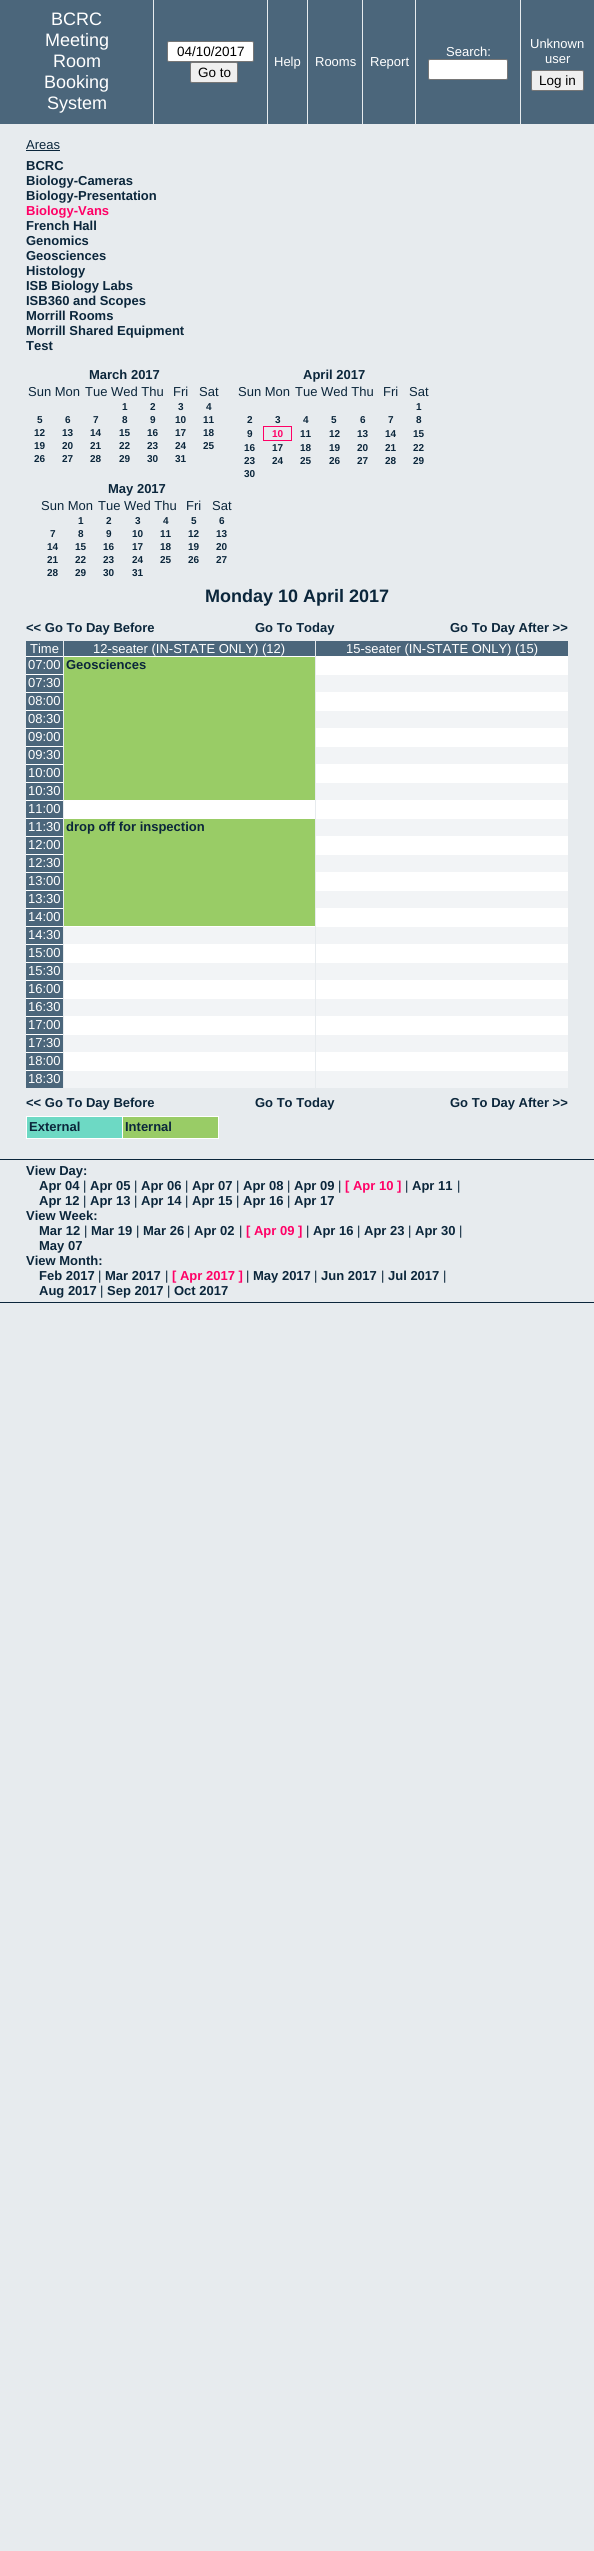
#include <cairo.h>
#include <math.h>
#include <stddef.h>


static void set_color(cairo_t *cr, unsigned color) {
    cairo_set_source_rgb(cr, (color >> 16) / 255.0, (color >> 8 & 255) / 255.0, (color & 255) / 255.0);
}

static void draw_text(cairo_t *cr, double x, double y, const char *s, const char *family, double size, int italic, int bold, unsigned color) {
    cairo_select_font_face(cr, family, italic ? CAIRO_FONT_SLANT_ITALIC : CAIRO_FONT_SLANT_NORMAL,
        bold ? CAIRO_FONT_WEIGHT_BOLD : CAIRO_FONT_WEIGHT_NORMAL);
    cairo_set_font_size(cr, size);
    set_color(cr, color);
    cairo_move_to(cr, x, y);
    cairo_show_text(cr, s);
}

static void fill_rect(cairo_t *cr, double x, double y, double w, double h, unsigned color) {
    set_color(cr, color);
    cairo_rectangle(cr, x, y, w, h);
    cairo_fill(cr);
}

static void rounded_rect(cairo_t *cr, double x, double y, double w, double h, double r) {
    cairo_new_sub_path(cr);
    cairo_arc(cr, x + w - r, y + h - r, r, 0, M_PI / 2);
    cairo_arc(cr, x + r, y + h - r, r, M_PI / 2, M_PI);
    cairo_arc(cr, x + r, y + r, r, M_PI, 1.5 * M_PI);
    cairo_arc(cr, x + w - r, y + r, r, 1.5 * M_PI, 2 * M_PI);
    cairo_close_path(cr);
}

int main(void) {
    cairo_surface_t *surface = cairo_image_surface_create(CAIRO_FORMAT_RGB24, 594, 2551);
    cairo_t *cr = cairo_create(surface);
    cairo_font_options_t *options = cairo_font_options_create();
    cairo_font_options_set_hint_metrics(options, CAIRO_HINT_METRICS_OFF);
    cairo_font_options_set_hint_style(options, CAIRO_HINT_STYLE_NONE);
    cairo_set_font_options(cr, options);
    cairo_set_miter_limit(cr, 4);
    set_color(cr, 0xE7EBEE);
    cairo_paint(cr);
    fill_rect(cr, 0, 0, 594, 124, 0x4B667B);
    draw_text(cr, 51, 25, "BCRC", "Liberation Sans", 18, 0, 0, 0xFFFFFF);
    draw_text(cr, 45, 46, "Meeting", "Liberation Sans", 18, 0, 0, 0xFFFFFF);
    draw_text(cr, 53, 67, "Room", "Liberation Sans", 18, 0, 0, 0xFFFFFF);
    draw_text(cr, 44, 88, "Booking", "Liberation Sans", 18, 0, 0, 0xFFFFFF);
    draw_text(cr, 47, 109, "System", "Liberation Sans", 18, 0, 0, 0xFFFFFF);
    fill_rect(cr, 153, 0, 1, 124, 0xE7EBEE);
    set_color(cr, 0xFFFFFF);
    rounded_rect(cr, 167.5, 41.5, 86, 20, 1.5);
    cairo_fill_preserve(cr);
    set_color(cr, 0x767676);
    cairo_set_line_width(cr, 1);
    cairo_stroke(cr);
    draw_text(cr, 177, 56, "04/10/2017", "Liberation Sans", 13.5, 0, 0, 0x000000);
    set_color(cr, 0xEFEFEF);
    rounded_rect(cr, 190.5, 62.5, 47, 20, 1.5);
    cairo_fill_preserve(cr);
    set_color(cr, 0x767676);
    cairo_stroke(cr);
    draw_text(cr, 198, 77, "Go to", "Liberation Sans", 13.5, 0, 0, 0x000000);
    fill_rect(cr, 415, 0, 1, 124, 0xE7EBEE);
    draw_text(cr, 446, 56, "Search:", "Liberation Sans", 13, 0, 0, 0xFFFFFF);
    rounded_rect(cr, 428.5, 59.5, 79, 20, 1.5);
    cairo_fill_preserve(cr);
    set_color(cr, 0x767676);
    cairo_stroke(cr);
    fill_rect(cr, 520, 0, 1, 124, 0xE7EBEE);
    draw_text(cr, 530, 48, "Unknown", "Liberation Sans", 13, 0, 0, 0xFFFFFF);
    draw_text(cr, 545, 63, "user", "Liberation Sans", 13, 0, 0, 0xFFFFFF);
    set_color(cr, 0xEFEFEF);
    rounded_rect(cr, 531.5, 70.5, 52, 20, 1.5);
    cairo_fill_preserve(cr);
    set_color(cr, 0x767676);
    cairo_stroke(cr);
    draw_text(cr, 539, 85, "Log in", "Liberation Sans", 13.5, 0, 0, 0x000000);
    fill_rect(cr, 267, 0, 1, 124, 0xE7EBEE);
    draw_text(cr, 274, 66, "Help", "Liberation Sans", 13, 0, 0, 0xFFFFFF);
    fill_rect(cr, 307, 0, 1, 124, 0xE7EBEE);
    draw_text(cr, 315, 66, "Rooms", "Liberation Sans", 13, 0, 0, 0xFFFFFF);
    fill_rect(cr, 362, 0, 1, 124, 0xE7EBEE);
    draw_text(cr, 370, 66, "Report", "Liberation Sans", 13, 0, 0, 0xFFFFFF);
    draw_text(cr, 26, 149, "Areas", "Liberation Sans", 13, 0, 0, 0x0B263B);
    fill_rect(cr, 26, 150, 34, 1, 0x0B263B);
    draw_text(cr, 26, 170, "BCRC", "Liberation Sans", 13, 0, 1, 0x0B263B);
    draw_text(cr, 26, 185, "Biology-Cameras", "Liberation Sans", 13, 0, 1, 0x0B263B);
    draw_text(cr, 26, 200, "Biology-Presentation", "Liberation Sans", 13, 0, 1, 0x0B263B);
    draw_text(cr, 26, 215, "Biology-Vans", "Liberation Sans", 13, 0, 1, 0xFF0066);
    draw_text(cr, 26, 230, "French Hall", "Liberation Sans", 13, 0, 1, 0x0B263B);
    draw_text(cr, 26, 245, "Genomics", "Liberation Sans", 13, 0, 1, 0x0B263B);
    draw_text(cr, 26, 260, "Geosciences", "Liberation Sans", 13, 0, 1, 0x0B263B);
    draw_text(cr, 26, 275, "Histology", "Liberation Sans", 13, 0, 1, 0x0B263B);
    draw_text(cr, 26, 290, "ISB Biology Labs", "Liberation Sans", 13, 0, 1, 0x0B263B);
    draw_text(cr, 26, 305, "ISB360 and Scopes", "Liberation Sans", 13, 0, 1, 0x0B263B);
    draw_text(cr, 26, 320, "Morrill Rooms", "Liberation Sans", 13, 0, 1, 0x0B263B);
    draw_text(cr, 26, 335, "Morrill Shared Equipment", "Liberation Sans", 13, 0, 1, 0x0B263B);
    draw_text(cr, 26, 350, "Test", "Liberation Sans", 13, 0, 1, 0x0B263B);
    draw_text(cr, 89, 379, "March 2017", "Liberation Sans", 13, 0, 1, 0x0B263B);
    draw_text(cr, 28, 396, "Sun Mon", "Liberation Sans", 13, 0, 0, 0x0B263B);
    draw_text(cr, 85, 396, "Tue Wed Thu", "Liberation Sans", 13, 0, 0, 0x0B263B);
    draw_text(cr, 173, 396, "Fri", "Liberation Sans", 13, 0, 0, 0x0B263B);
    draw_text(cr, 199, 396, "Sat", "Liberation Sans", 13, 0, 0, 0x0B263B);
    draw_text(cr, 122, 410, "1", "Liberation Sans", 10, 0, 1, 0x0B263B);
    draw_text(cr, 150, 410, "2", "Liberation Sans", 10, 0, 1, 0x0B263B);
    draw_text(cr, 178, 410, "3", "Liberation Sans", 10, 0, 1, 0x0B263B);
    draw_text(cr, 206, 410, "4", "Liberation Sans", 10, 0, 1, 0x0B263B);
    draw_text(cr, 37, 423, "5", "Liberation Sans", 10, 0, 1, 0x0B263B);
    draw_text(cr, 65, 423, "6", "Liberation Sans", 10, 0, 1, 0x0B263B);
    draw_text(cr, 93, 423, "7", "Liberation Sans", 10, 0, 1, 0x0B263B);
    draw_text(cr, 122, 423, "8", "Liberation Sans", 10, 0, 1, 0x0B263B);
    draw_text(cr, 150, 423, "9", "Liberation Sans", 10, 0, 1, 0x0B263B);
    draw_text(cr, 175, 423, "10", "Liberation Sans", 10, 0, 1, 0x0B263B);
    draw_text(cr, 203, 423, "11", "Liberation Sans", 10, 0, 1, 0x0B263B);
    draw_text(cr, 34, 436, "12", "Liberation Sans", 10, 0, 1, 0x0B263B);
    draw_text(cr, 62, 436, "13", "Liberation Sans", 10, 0, 1, 0x0B263B);
    draw_text(cr, 90, 436, "14", "Liberation Sans", 10, 0, 1, 0x0B263B);
    draw_text(cr, 119, 436, "15", "Liberation Sans", 10, 0, 1, 0x0B263B);
    draw_text(cr, 147, 436, "16", "Liberation Sans", 10, 0, 1, 0x0B263B);
    draw_text(cr, 175, 436, "17", "Liberation Sans", 10, 0, 1, 0x0B263B);
    draw_text(cr, 203, 436, "18", "Liberation Sans", 10, 0, 1, 0x0B263B);
    draw_text(cr, 34, 449, "19", "Liberation Sans", 10, 0, 1, 0x0B263B);
    draw_text(cr, 62, 449, "20", "Liberation Sans", 10, 0, 1, 0x0B263B);
    draw_text(cr, 90, 449, "21", "Liberation Sans", 10, 0, 1, 0x0B263B);
    draw_text(cr, 119, 449, "22", "Liberation Sans", 10, 0, 1, 0x0B263B);
    draw_text(cr, 147, 449, "23", "Liberation Sans", 10, 0, 1, 0x0B263B);
    draw_text(cr, 175, 449, "24", "Liberation Sans", 10, 0, 1, 0x0B263B);
    draw_text(cr, 203, 449, "25", "Liberation Sans", 10, 0, 1, 0x0B263B);
    draw_text(cr, 34, 462, "26", "Liberation Sans", 10, 0, 1, 0x0B263B);
    draw_text(cr, 62, 462, "27", "Liberation Sans", 10, 0, 1, 0x0B263B);
    draw_text(cr, 90, 462, "28", "Liberation Sans", 10, 0, 1, 0x0B263B);
    draw_text(cr, 119, 462, "29", "Liberation Sans", 10, 0, 1, 0x0B263B);
    draw_text(cr, 147, 462, "30", "Liberation Sans", 10, 0, 1, 0x0B263B);
    draw_text(cr, 175, 462, "31", "Liberation Sans", 10, 0, 1, 0x0B263B);
    draw_text(cr, 303, 379, "April 2017", "Liberation Sans", 13, 0, 1, 0x0B263B);
    draw_text(cr, 238, 396, "Sun Mon", "Liberation Sans", 13, 0, 0, 0x0B263B);
    draw_text(cr, 295, 396, "Tue Wed Thu", "Liberation Sans", 13, 0, 0, 0x0B263B);
    draw_text(cr, 383, 396, "Fri", "Liberation Sans", 13, 0, 0, 0x0B263B);
    draw_text(cr, 409, 396, "Sat", "Liberation Sans", 13, 0, 0, 0x0B263B);
    draw_text(cr, 416, 410, "1", "Liberation Sans", 10, 0, 1, 0x0B263B);
    draw_text(cr, 247, 423, "2", "Liberation Sans", 10, 0, 1, 0x0B263B);
    draw_text(cr, 275, 423, "3", "Liberation Sans", 10, 0, 1, 0x0B263B);
    draw_text(cr, 303, 423, "4", "Liberation Sans", 10, 0, 1, 0x0B263B);
    draw_text(cr, 331, 423, "5", "Liberation Sans", 10, 0, 1, 0x0B263B);
    draw_text(cr, 360, 423, "6", "Liberation Sans", 10, 0, 1, 0x0B263B);
    draw_text(cr, 388, 423, "7", "Liberation Sans", 10, 0, 1, 0x0B263B);
    draw_text(cr, 416, 423, "8", "Liberation Sans", 10, 0, 1, 0x0B263B);
    draw_text(cr, 247, 437, "9", "Liberation Sans", 10, 0, 1, 0x0B263B);
    fill_rect(cr, 263, 426, 29, 1, 0xFF0066);
    fill_rect(cr, 291, 426, 1, 15, 0xFF0066);
    fill_rect(cr, 263, 440, 29, 1, 0xFF0066);
    fill_rect(cr, 263, 426, 1, 15, 0xFF0066);
    draw_text(cr, 272, 437, "10", "Liberation Sans", 10, 0, 1, 0xFF0066);
    draw_text(cr, 300, 437, "11", "Liberation Sans", 10, 0, 1, 0x0B263B);
    draw_text(cr, 329, 437, "12", "Liberation Sans", 10, 0, 1, 0x0B263B);
    draw_text(cr, 357, 437, "13", "Liberation Sans", 10, 0, 1, 0x0B263B);
    draw_text(cr, 385, 437, "14", "Liberation Sans", 10, 0, 1, 0x0B263B);
    draw_text(cr, 413, 437, "15", "Liberation Sans", 10, 0, 1, 0x0B263B);
    draw_text(cr, 244, 451, "16", "Liberation Sans", 10, 0, 1, 0x0B263B);
    draw_text(cr, 272, 451, "17", "Liberation Sans", 10, 0, 1, 0x0B263B);
    draw_text(cr, 300, 451, "18", "Liberation Sans", 10, 0, 1, 0x0B263B);
    draw_text(cr, 329, 451, "19", "Liberation Sans", 10, 0, 1, 0x0B263B);
    draw_text(cr, 357, 451, "20", "Liberation Sans", 10, 0, 1, 0x0B263B);
    draw_text(cr, 385, 451, "21", "Liberation Sans", 10, 0, 1, 0x0B263B);
    draw_text(cr, 413, 451, "22", "Liberation Sans", 10, 0, 1, 0x0B263B);
    draw_text(cr, 244, 464, "23", "Liberation Sans", 10, 0, 1, 0x0B263B);
    draw_text(cr, 272, 464, "24", "Liberation Sans", 10, 0, 1, 0x0B263B);
    draw_text(cr, 300, 464, "25", "Liberation Sans", 10, 0, 1, 0x0B263B);
    draw_text(cr, 329, 464, "26", "Liberation Sans", 10, 0, 1, 0x0B263B);
    draw_text(cr, 357, 464, "27", "Liberation Sans", 10, 0, 1, 0x0B263B);
    draw_text(cr, 385, 464, "28", "Liberation Sans", 10, 0, 1, 0x0B263B);
    draw_text(cr, 413, 464, "29", "Liberation Sans", 10, 0, 1, 0x0B263B);
    draw_text(cr, 244, 477, "30", "Liberation Sans", 10, 0, 1, 0x0B263B);
    draw_text(cr, 108, 493, "May 2017", "Liberation Sans", 13, 0, 1, 0x0B263B);
    draw_text(cr, 41, 510, "Sun Mon", "Liberation Sans", 13, 0, 0, 0x0B263B);
    draw_text(cr, 98, 510, "Tue Wed Thu", "Liberation Sans", 13, 0, 0, 0x0B263B);
    draw_text(cr, 186, 510, "Fri", "Liberation Sans", 13, 0, 0, 0x0B263B);
    draw_text(cr, 212, 510, "Sat", "Liberation Sans", 13, 0, 0, 0x0B263B);
    draw_text(cr, 78, 524, "1", "Liberation Sans", 10, 0, 1, 0x0B263B);
    draw_text(cr, 106, 524, "2", "Liberation Sans", 10, 0, 1, 0x0B263B);
    draw_text(cr, 135, 524, "3", "Liberation Sans", 10, 0, 1, 0x0B263B);
    draw_text(cr, 163, 524, "4", "Liberation Sans", 10, 0, 1, 0x0B263B);
    draw_text(cr, 191, 524, "5", "Liberation Sans", 10, 0, 1, 0x0B263B);
    draw_text(cr, 219, 524, "6", "Liberation Sans", 10, 0, 1, 0x0B263B);
    draw_text(cr, 50, 537, "7", "Liberation Sans", 10, 0, 1, 0x0B263B);
    draw_text(cr, 78, 537, "8", "Liberation Sans", 10, 0, 1, 0x0B263B);
    draw_text(cr, 106, 537, "9", "Liberation Sans", 10, 0, 1, 0x0B263B);
    draw_text(cr, 132, 537, "10", "Liberation Sans", 10, 0, 1, 0x0B263B);
    draw_text(cr, 160, 537, "11", "Liberation Sans", 10, 0, 1, 0x0B263B);
    draw_text(cr, 188, 537, "12", "Liberation Sans", 10, 0, 1, 0x0B263B);
    draw_text(cr, 216, 537, "13", "Liberation Sans", 10, 0, 1, 0x0B263B);
    draw_text(cr, 47, 550, "14", "Liberation Sans", 10, 0, 1, 0x0B263B);
    draw_text(cr, 75, 550, "15", "Liberation Sans", 10, 0, 1, 0x0B263B);
    draw_text(cr, 103, 550, "16", "Liberation Sans", 10, 0, 1, 0x0B263B);
    draw_text(cr, 132, 550, "17", "Liberation Sans", 10, 0, 1, 0x0B263B);
    draw_text(cr, 160, 550, "18", "Liberation Sans", 10, 0, 1, 0x0B263B);
    draw_text(cr, 188, 550, "19", "Liberation Sans", 10, 0, 1, 0x0B263B);
    draw_text(cr, 216, 550, "20", "Liberation Sans", 10, 0, 1, 0x0B263B);
    draw_text(cr, 47, 563, "21", "Liberation Sans", 10, 0, 1, 0x0B263B);
    draw_text(cr, 75, 563, "22", "Liberation Sans", 10, 0, 1, 0x0B263B);
    draw_text(cr, 103, 563, "23", "Liberation Sans", 10, 0, 1, 0x0B263B);
    draw_text(cr, 132, 563, "24", "Liberation Sans", 10, 0, 1, 0x0B263B);
    draw_text(cr, 160, 563, "25", "Liberation Sans", 10, 0, 1, 0x0B263B);
    draw_text(cr, 188, 563, "26", "Liberation Sans", 10, 0, 1, 0x0B263B);
    draw_text(cr, 216, 563, "27", "Liberation Sans", 10, 0, 1, 0x0B263B);
    draw_text(cr, 47, 576, "28", "Liberation Sans", 10, 0, 1, 0x0B263B);
    draw_text(cr, 75, 576, "29", "Liberation Sans", 10, 0, 1, 0x0B263B);
    draw_text(cr, 103, 576, "30", "Liberation Sans", 10, 0, 1, 0x0B263B);
    draw_text(cr, 132, 576, "31", "Liberation Sans", 10, 0, 1, 0x0B263B);
    draw_text(cr, 205, 602, "Monday 10 April 2017", "Liberation Sans", 18, 0, 1, 0x0B263B);
    draw_text(cr, 26, 632, "<< Go To Day Before", "Liberation Sans", 13, 0, 1, 0x0B263B);
    draw_text(cr, 255, 632, "Go To Today", "Liberation Sans", 13, 0, 1, 0x0B263B);
    draw_text(cr, 450, 632, "Go To Day After >>", "Liberation Sans", 13, 0, 1, 0x0B263B);
    fill_rect(cr, 26, 641, 37, 15, 0x4B667B);
    draw_text(cr, 30, 653, "Time", "Liberation Sans", 13, 0, 0, 0xFFFFFF);
    fill_rect(cr, 64, 641, 251, 15, 0x4B667B);
    draw_text(cr, 93, 653, "12-seater (IN-STATE ONLY) (12)", "Liberation Sans", 13, 0, 0, 0xFFFFFF);
    fill_rect(cr, 316, 641, 252, 15, 0x4B667B);
    draw_text(cr, 346, 653, "15-seater (IN-STATE ONLY) (15)", "Liberation Sans", 13, 0, 0, 0xFFFFFF);
    fill_rect(cr, 26, 657, 37, 17, 0x4B667B);
    fill_rect(cr, 26, 656, 289, 1, 0xFFFFFF);
    draw_text(cr, 28, 669, "07:00", "Liberation Sans", 13, 0, 0, 0xFFFFFF);
    fill_rect(cr, 64, 657, 251, 143, 0x99CC66);
    fill_rect(cr, 63, 656, 1, 1, 0xE7EBEE);
    draw_text(cr, 66, 669, "Geosciences", "Liberation Sans", 13, 0, 1, 0x0B263B);
    fill_rect(cr, 316, 656, 252, 18, 0xFFFFFF);
    fill_rect(cr, 26, 675, 37, 17, 0x4B667B);
    fill_rect(cr, 26, 674, 37, 1, 0xFFFFFF);
    draw_text(cr, 28, 687, "07:30", "Liberation Sans", 13, 0, 0, 0xFFFFFF);
    fill_rect(cr, 316, 675, 252, 17, 0xF2F4F6);
    fill_rect(cr, 315, 674, 253, 1, 0xFFFFFF);
    fill_rect(cr, 315, 674, 1, 1, 0xE7EBEE);
    fill_rect(cr, 26, 693, 37, 17, 0x4B667B);
    fill_rect(cr, 26, 692, 37, 1, 0xFFFFFF);
    draw_text(cr, 28, 705, "08:00", "Liberation Sans", 13, 0, 0, 0xFFFFFF);
    fill_rect(cr, 316, 692, 252, 18, 0xFFFFFF);
    fill_rect(cr, 26, 711, 37, 17, 0x4B667B);
    fill_rect(cr, 26, 710, 37, 1, 0xFFFFFF);
    draw_text(cr, 28, 723, "08:30", "Liberation Sans", 13, 0, 0, 0xFFFFFF);
    fill_rect(cr, 316, 711, 252, 17, 0xF2F4F6);
    fill_rect(cr, 315, 710, 253, 1, 0xFFFFFF);
    fill_rect(cr, 315, 710, 1, 1, 0xE7EBEE);
    fill_rect(cr, 26, 729, 37, 17, 0x4B667B);
    fill_rect(cr, 26, 728, 37, 1, 0xFFFFFF);
    draw_text(cr, 28, 741, "09:00", "Liberation Sans", 13, 0, 0, 0xFFFFFF);
    fill_rect(cr, 316, 728, 252, 18, 0xFFFFFF);
    fill_rect(cr, 26, 747, 37, 17, 0x4B667B);
    fill_rect(cr, 26, 746, 37, 1, 0xFFFFFF);
    draw_text(cr, 28, 759, "09:30", "Liberation Sans", 13, 0, 0, 0xFFFFFF);
    fill_rect(cr, 316, 747, 252, 17, 0xF2F4F6);
    fill_rect(cr, 315, 746, 253, 1, 0xFFFFFF);
    fill_rect(cr, 315, 746, 1, 1, 0xE7EBEE);
    fill_rect(cr, 26, 765, 37, 17, 0x4B667B);
    fill_rect(cr, 26, 764, 37, 1, 0xFFFFFF);
    draw_text(cr, 28, 777, "10:00", "Liberation Sans", 13, 0, 0, 0xFFFFFF);
    fill_rect(cr, 316, 764, 252, 18, 0xFFFFFF);
    fill_rect(cr, 26, 783, 37, 17, 0x4B667B);
    fill_rect(cr, 26, 782, 37, 1, 0xFFFFFF);
    draw_text(cr, 28, 795, "10:30", "Liberation Sans", 13, 0, 0, 0xFFFFFF);
    fill_rect(cr, 316, 783, 252, 17, 0xF2F4F6);
    fill_rect(cr, 315, 782, 253, 1, 0xFFFFFF);
    fill_rect(cr, 315, 782, 1, 1, 0xE7EBEE);
    fill_rect(cr, 26, 801, 37, 17, 0x4B667B);
    fill_rect(cr, 26, 800, 37, 1, 0xFFFFFF);
    draw_text(cr, 28, 813, "11:00", "Liberation Sans", 13, 0, 0, 0xFFFFFF);
    fill_rect(cr, 64, 800, 251, 18, 0xFFFFFF);
    fill_rect(cr, 316, 800, 252, 18, 0xFFFFFF);
    fill_rect(cr, 26, 819, 37, 17, 0x4B667B);
    fill_rect(cr, 26, 818, 542, 1, 0xFFFFFF);
    draw_text(cr, 28, 831, "11:30", "Liberation Sans", 13, 0, 0, 0xFFFFFF);
    fill_rect(cr, 64, 819, 251, 107, 0x99CC66);
    fill_rect(cr, 63, 818, 1, 1, 0xE7EBEE);
    draw_text(cr, 66, 831, "drop off for inspection", "Liberation Sans", 13, 0, 1, 0x0B263B);
    fill_rect(cr, 316, 819, 252, 17, 0xF2F4F6);
    fill_rect(cr, 315, 818, 1, 1, 0xE7EBEE);
    fill_rect(cr, 26, 837, 37, 17, 0x4B667B);
    fill_rect(cr, 26, 836, 37, 1, 0xFFFFFF);
    draw_text(cr, 28, 849, "12:00", "Liberation Sans", 13, 0, 0, 0xFFFFFF);
    fill_rect(cr, 316, 836, 252, 18, 0xFFFFFF);
    fill_rect(cr, 26, 855, 37, 17, 0x4B667B);
    fill_rect(cr, 26, 854, 37, 1, 0xFFFFFF);
    draw_text(cr, 28, 867, "12:30", "Liberation Sans", 13, 0, 0, 0xFFFFFF);
    fill_rect(cr, 316, 855, 252, 17, 0xF2F4F6);
    fill_rect(cr, 315, 854, 253, 1, 0xFFFFFF);
    fill_rect(cr, 315, 854, 1, 1, 0xE7EBEE);
    fill_rect(cr, 26, 873, 37, 17, 0x4B667B);
    fill_rect(cr, 26, 872, 37, 1, 0xFFFFFF);
    draw_text(cr, 28, 885, "13:00", "Liberation Sans", 13, 0, 0, 0xFFFFFF);
    fill_rect(cr, 316, 872, 252, 18, 0xFFFFFF);
    fill_rect(cr, 26, 891, 37, 17, 0x4B667B);
    fill_rect(cr, 26, 890, 37, 1, 0xFFFFFF);
    draw_text(cr, 28, 903, "13:30", "Liberation Sans", 13, 0, 0, 0xFFFFFF);
    fill_rect(cr, 316, 891, 252, 17, 0xF2F4F6);
    fill_rect(cr, 315, 890, 253, 1, 0xFFFFFF);
    fill_rect(cr, 315, 890, 1, 1, 0xE7EBEE);
    fill_rect(cr, 26, 909, 37, 17, 0x4B667B);
    fill_rect(cr, 26, 908, 37, 1, 0xFFFFFF);
    draw_text(cr, 28, 921, "14:00", "Liberation Sans", 13, 0, 0, 0xFFFFFF);
    fill_rect(cr, 316, 908, 252, 18, 0xFFFFFF);
    fill_rect(cr, 26, 927, 37, 17, 0x4B667B);
    fill_rect(cr, 26, 926, 542, 1, 0xFFFFFF);
    draw_text(cr, 28, 939, "14:30", "Liberation Sans", 13, 0, 0, 0xFFFFFF);
    fill_rect(cr, 64, 927, 251, 17, 0xF2F4F6);
    fill_rect(cr, 63, 926, 1, 1, 0xE7EBEE);
    fill_rect(cr, 316, 927, 252, 17, 0xF2F4F6);
    fill_rect(cr, 315, 926, 1, 1, 0xE7EBEE);
    fill_rect(cr, 26, 945, 37, 17, 0x4B667B);
    fill_rect(cr, 26, 944, 37, 1, 0xFFFFFF);
    draw_text(cr, 28, 957, "15:00", "Liberation Sans", 13, 0, 0, 0xFFFFFF);
    fill_rect(cr, 64, 944, 251, 18, 0xFFFFFF);
    fill_rect(cr, 316, 944, 252, 18, 0xFFFFFF);
    fill_rect(cr, 26, 963, 37, 17, 0x4B667B);
    fill_rect(cr, 26, 962, 542, 1, 0xFFFFFF);
    draw_text(cr, 28, 975, "15:30", "Liberation Sans", 13, 0, 0, 0xFFFFFF);
    fill_rect(cr, 64, 963, 251, 17, 0xF2F4F6);
    fill_rect(cr, 63, 962, 1, 1, 0xE7EBEE);
    fill_rect(cr, 316, 963, 252, 17, 0xF2F4F6);
    fill_rect(cr, 315, 962, 1, 1, 0xE7EBEE);
    fill_rect(cr, 26, 981, 37, 17, 0x4B667B);
    fill_rect(cr, 26, 980, 37, 1, 0xFFFFFF);
    draw_text(cr, 28, 993, "16:00", "Liberation Sans", 13, 0, 0, 0xFFFFFF);
    fill_rect(cr, 64, 980, 251, 18, 0xFFFFFF);
    fill_rect(cr, 316, 980, 252, 18, 0xFFFFFF);
    fill_rect(cr, 26, 999, 37, 17, 0x4B667B);
    fill_rect(cr, 26, 998, 542, 1, 0xFFFFFF);
    draw_text(cr, 28, 1011, "16:30", "Liberation Sans", 13, 0, 0, 0xFFFFFF);
    fill_rect(cr, 64, 999, 251, 17, 0xF2F4F6);
    fill_rect(cr, 63, 998, 1, 1, 0xE7EBEE);
    fill_rect(cr, 316, 999, 252, 17, 0xF2F4F6);
    fill_rect(cr, 315, 998, 1, 1, 0xE7EBEE);
    fill_rect(cr, 26, 1017, 37, 17, 0x4B667B);
    fill_rect(cr, 26, 1016, 37, 1, 0xFFFFFF);
    draw_text(cr, 28, 1029, "17:00", "Liberation Sans", 13, 0, 0, 0xFFFFFF);
    fill_rect(cr, 64, 1016, 251, 18, 0xFFFFFF);
    fill_rect(cr, 316, 1016, 252, 18, 0xFFFFFF);
    fill_rect(cr, 26, 1035, 37, 17, 0x4B667B);
    fill_rect(cr, 26, 1034, 542, 1, 0xFFFFFF);
    draw_text(cr, 28, 1047, "17:30", "Liberation Sans", 13, 0, 0, 0xFFFFFF);
    fill_rect(cr, 64, 1035, 251, 17, 0xF2F4F6);
    fill_rect(cr, 63, 1034, 1, 1, 0xE7EBEE);
    fill_rect(cr, 316, 1035, 252, 17, 0xF2F4F6);
    fill_rect(cr, 315, 1034, 1, 1, 0xE7EBEE);
    fill_rect(cr, 26, 1053, 37, 17, 0x4B667B);
    fill_rect(cr, 26, 1052, 37, 1, 0xFFFFFF);
    draw_text(cr, 28, 1065, "18:00", "Liberation Sans", 13, 0, 0, 0xFFFFFF);
    fill_rect(cr, 64, 1052, 251, 18, 0xFFFFFF);
    fill_rect(cr, 316, 1052, 252, 18, 0xFFFFFF);
    fill_rect(cr, 26, 1071, 37, 17, 0x4B667B);
    fill_rect(cr, 26, 1070, 542, 1, 0xFFFFFF);
    draw_text(cr, 28, 1083, "18:30", "Liberation Sans", 13, 0, 0, 0xFFFFFF);
    fill_rect(cr, 64, 1071, 251, 17, 0xF2F4F6);
    fill_rect(cr, 63, 1070, 1, 1, 0xE7EBEE);
    fill_rect(cr, 316, 1071, 252, 17, 0xF2F4F6);
    fill_rect(cr, 315, 1070, 1, 1, 0xE7EBEE);
    draw_text(cr, 26, 1107, "<< Go To Day Before", "Liberation Sans", 13, 0, 1, 0x0B263B);
    draw_text(cr, 255, 1107, "Go To Today", "Liberation Sans", 13, 0, 1, 0x0B263B);
    draw_text(cr, 450, 1107, "Go To Day After >>", "Liberation Sans", 13, 0, 1, 0x0B263B);
    fill_rect(cr, 27, 1117, 95, 21, 0x6DD9C4);
    fill_rect(cr, 122, 1116, 97, 1, 0xFFFFFF);
    fill_rect(cr, 218, 1116, 1, 23, 0xFFFFFF);
    fill_rect(cr, 122, 1138, 97, 1, 0xFFFFFF);
    fill_rect(cr, 122, 1116, 1, 23, 0xFFFFFF);
    fill_rect(cr, 26, 1116, 97, 1, 0xFFFFFF);
    fill_rect(cr, 26, 1138, 97, 1, 0xFFFFFF);
    fill_rect(cr, 26, 1116, 1, 23, 0xFFFFFF);
    draw_text(cr, 29, 1131, "External", "Liberation Sans", 13, 0, 1, 0x0B263B);
    fill_rect(cr, 123, 1117, 95, 21, 0x99CC66);
    draw_text(cr, 125, 1131, "Internal", "Liberation Sans", 13, 0, 1, 0x0B263B);
    fill_rect(cr, 0, 1159, 594, 1, 0x0B263B);
    fill_rect(cr, 0, 1302, 594, 1, 0x0B263B);
    draw_text(cr, 26, 1175, "View Day:", "Liberation Sans", 13, 0, 1, 0x0B263B);
    draw_text(cr, 39, 1190, "Apr 04", "Liberation Sans", 13, 0, 1, 0x0B263B);
    draw_text(cr, 83, 1190, "|", "Liberation Sans", 13, 0, 0, 0x0B263B);
    draw_text(cr, 90, 1190, "Apr 05", "Liberation Sans", 13, 0, 1, 0x0B263B);
    draw_text(cr, 134, 1190, "|", "Liberation Sans", 13, 0, 0, 0x0B263B);
    draw_text(cr, 141, 1190, "Apr 06", "Liberation Sans", 13, 0, 1, 0x0B263B);
    draw_text(cr, 185, 1190, "|", "Liberation Sans", 13, 0, 0, 0x0B263B);
    draw_text(cr, 192, 1190, "Apr 07", "Liberation Sans", 13, 0, 1, 0x0B263B);
    draw_text(cr, 236, 1190, "|", "Liberation Sans", 13, 0, 0, 0x0B263B);
    draw_text(cr, 243, 1190, "Apr 08", "Liberation Sans", 13, 0, 1, 0x0B263B);
    draw_text(cr, 287, 1190, "|", "Liberation Sans", 13, 0, 0, 0x0B263B);
    draw_text(cr, 294, 1190, "Apr 09", "Liberation Sans", 13, 0, 1, 0x0B263B);
    draw_text(cr, 338, 1190, "|", "Liberation Sans", 13, 0, 0, 0x0B263B);
    draw_text(cr, 345, 1190, "[ Apr 10 ]", "Liberation Sans", 13, 0, 1, 0xFF0066);
    draw_text(cr, 405, 1190, "|", "Liberation Sans", 13, 0, 0, 0x0B263B);
    draw_text(cr, 412, 1190, "Apr 11", "Liberation Sans", 13, 0, 1, 0x0B263B);
    draw_text(cr, 457, 1190, "|", "Liberation Sans", 13, 0, 0, 0x0B263B);
    draw_text(cr, 39, 1205, "Apr 12", "Liberation Sans", 13, 0, 1, 0x0B263B);
    draw_text(cr, 83, 1205, "|", "Liberation Sans", 13, 0, 0, 0x0B263B);
    draw_text(cr, 90, 1205, "Apr 13", "Liberation Sans", 13, 0, 1, 0x0B263B);
    draw_text(cr, 134, 1205, "|", "Liberation Sans", 13, 0, 0, 0x0B263B);
    draw_text(cr, 141, 1205, "Apr 14", "Liberation Sans", 13, 0, 1, 0x0B263B);
    draw_text(cr, 185, 1205, "|", "Liberation Sans", 13, 0, 0, 0x0B263B);
    draw_text(cr, 192, 1205, "Apr 15", "Liberation Sans", 13, 0, 1, 0x0B263B);
    draw_text(cr, 236, 1205, "|", "Liberation Sans", 13, 0, 0, 0x0B263B);
    draw_text(cr, 243, 1205, "Apr 16", "Liberation Sans", 13, 0, 1, 0x0B263B);
    draw_text(cr, 287, 1205, "|", "Liberation Sans", 13, 0, 0, 0x0B263B);
    draw_text(cr, 294, 1205, "Apr 17", "Liberation Sans", 13, 0, 1, 0x0B263B);
    draw_text(cr, 26, 1220, "View Week:", "Liberation Sans", 13, 0, 1, 0x0B263B);
    draw_text(cr, 39, 1235, "Mar 12", "Liberation Sans", 13, 0, 1, 0x0B263B);
    draw_text(cr, 84, 1235, "|", "Liberation Sans", 13, 0, 0, 0x0B263B);
    draw_text(cr, 91, 1235, "Mar 19", "Liberation Sans", 13, 0, 1, 0x0B263B);
    draw_text(cr, 136, 1235, "|", "Liberation Sans", 13, 0, 0, 0x0B263B);
    draw_text(cr, 143, 1235, "Mar 26", "Liberation Sans", 13, 0, 1, 0x0B263B);
    draw_text(cr, 187, 1235, "|", "Liberation Sans", 13, 0, 0, 0x0B263B);
    draw_text(cr, 194, 1235, "Apr 02", "Liberation Sans", 13, 0, 1, 0x0B263B);
    draw_text(cr, 239, 1235, "|", "Liberation Sans", 13, 0, 0, 0x0B263B);
    draw_text(cr, 246, 1235, "[ Apr 09 ]", "Liberation Sans", 13, 0, 1, 0xFF0066);
    draw_text(cr, 306, 1235, "|", "Liberation Sans", 13, 0, 0, 0x0B263B);
    draw_text(cr, 313, 1235, "Apr 16", "Liberation Sans", 13, 0, 1, 0x0B263B);
    draw_text(cr, 357, 1235, "|", "Liberation Sans", 13, 0, 0, 0x0B263B);
    draw_text(cr, 364, 1235, "Apr 23", "Liberation Sans", 13, 0, 1, 0x0B263B);
    draw_text(cr, 408, 1235, "|", "Liberation Sans", 13, 0, 0, 0x0B263B);
    draw_text(cr, 415, 1235, "Apr 30", "Liberation Sans", 13, 0, 1, 0x0B263B);
    draw_text(cr, 459, 1235, "|", "Liberation Sans", 13, 0, 0, 0x0B263B);
    draw_text(cr, 39, 1250, "May 07", "Liberation Sans", 13, 0, 1, 0x0B263B);
    draw_text(cr, 26, 1265, "View Month:", "Liberation Sans", 13, 0, 1, 0x0B263B);
    draw_text(cr, 39, 1280, "Feb 2017", "Liberation Sans", 13, 0, 1, 0x0B263B);
    draw_text(cr, 98, 1280, "|", "Liberation Sans", 13, 0, 0, 0x0B263B);
    draw_text(cr, 105, 1280, "Mar 2017", "Liberation Sans", 13, 0, 1, 0x0B263B);
    draw_text(cr, 165, 1280, "|", "Liberation Sans", 13, 0, 0, 0x0B263B);
    draw_text(cr, 172, 1280, "[ Apr 2017 ]", "Liberation Sans", 13, 0, 1, 0xFF0066);
    draw_text(cr, 246, 1280, "|", "Liberation Sans", 13, 0, 0, 0x0B263B);
    draw_text(cr, 253, 1280, "May 2017", "Liberation Sans", 13, 0, 1, 0x0B263B);
    draw_text(cr, 314, 1280, "|", "Liberation Sans", 13, 0, 0, 0x0B263B);
    draw_text(cr, 321, 1280, "Jun 2017", "Liberation Sans", 13, 0, 1, 0x0B263B);
    draw_text(cr, 381, 1280, "|", "Liberation Sans", 13, 0, 0, 0x0B263B);
    draw_text(cr, 388, 1280, "Jul 2017", "Liberation Sans", 13, 0, 1, 0x0B263B);
    draw_text(cr, 443, 1280, "|", "Liberation Sans", 13, 0, 0, 0x0B263B);
    draw_text(cr, 39, 1295, "Aug 2017", "Liberation Sans", 13, 0, 1, 0x0B263B);
    draw_text(cr, 100, 1295, "|", "Liberation Sans", 13, 0, 0, 0x0B263B);
    draw_text(cr, 107, 1295, "Sep 2017", "Liberation Sans", 13, 0, 1, 0x0B263B);
    draw_text(cr, 167, 1295, "|", "Liberation Sans", 13, 0, 0, 0x0B263B);
    draw_text(cr, 174, 1295, "Oct 2017", "Liberation Sans", 13, 0, 1, 0x0B263B);
    cairo_surface_write_to_png(surface, "output.png");
    cairo_font_options_destroy(options);
    cairo_destroy(cr);
    cairo_surface_destroy(surface);
    return 0;
}
